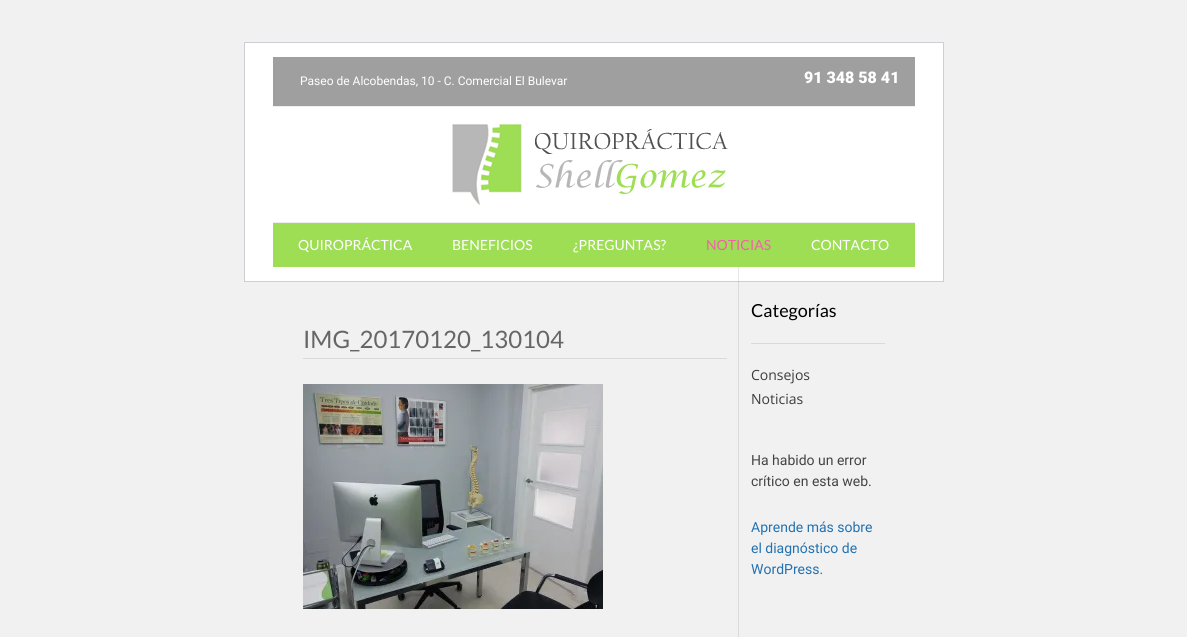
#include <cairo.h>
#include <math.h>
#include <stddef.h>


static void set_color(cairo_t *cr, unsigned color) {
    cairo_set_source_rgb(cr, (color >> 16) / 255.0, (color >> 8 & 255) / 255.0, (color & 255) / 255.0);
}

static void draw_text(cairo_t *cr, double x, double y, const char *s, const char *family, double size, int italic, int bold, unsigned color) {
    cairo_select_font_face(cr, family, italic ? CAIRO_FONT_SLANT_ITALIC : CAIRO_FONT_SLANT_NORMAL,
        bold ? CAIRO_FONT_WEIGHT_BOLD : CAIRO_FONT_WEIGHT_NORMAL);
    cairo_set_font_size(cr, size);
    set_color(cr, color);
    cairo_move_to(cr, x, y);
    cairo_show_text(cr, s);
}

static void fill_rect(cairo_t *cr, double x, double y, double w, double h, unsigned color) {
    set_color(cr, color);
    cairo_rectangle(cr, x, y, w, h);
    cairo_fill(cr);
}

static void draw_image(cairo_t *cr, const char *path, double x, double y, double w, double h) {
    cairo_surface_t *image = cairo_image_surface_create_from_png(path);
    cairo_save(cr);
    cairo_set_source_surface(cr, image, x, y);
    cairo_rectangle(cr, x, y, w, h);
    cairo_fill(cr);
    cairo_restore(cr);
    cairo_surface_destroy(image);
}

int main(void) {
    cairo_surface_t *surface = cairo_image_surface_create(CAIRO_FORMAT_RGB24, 1187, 637);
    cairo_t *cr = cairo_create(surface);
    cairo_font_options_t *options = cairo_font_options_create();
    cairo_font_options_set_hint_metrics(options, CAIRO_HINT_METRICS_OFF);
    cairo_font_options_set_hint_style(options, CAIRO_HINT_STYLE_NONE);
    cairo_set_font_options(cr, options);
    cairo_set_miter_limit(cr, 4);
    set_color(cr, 0xF1F1F1);
    cairo_paint(cr);
    set_color(cr, 0xFFFFFF);
    cairo_rectangle(cr, 244.5, 42.5, 699, 239);
    cairo_fill_preserve(cr);
    set_color(cr, 0xCCD0D4);
    cairo_set_line_width(cr, 1);
    cairo_stroke(cr);
    fill_rect(cr, 273, 57, 642, 49, 0x9F9F9F);
    fill_rect(cr, 273, 106, 642, 1, 0xEFEFEF);
    draw_text(cr, 300, 85, "Paseo de Alcobendas, 10 - C. Comercial El Bulevar", "Roboto", 12, 0, 0, 0xFFFFFF);
    draw_text(cr, 804, 83, "91 348 58 41", "Roboto Black", 16, 0, 0, 0xFFFFFF);
    draw_image(cr, "assets/img1.png", 452, 124, 276, 81);
    fill_rect(cr, 273, 223, 642, 44, 0x9EDE54);
    fill_rect(cr, 273, 222, 642, 1, 0xEFEFEF);
    draw_text(cr, 298, 250, "QUIROPRÁCTICA", "Lato", 14, 0, 0, 0xFFFFFF);
    draw_text(cr, 452, 250, "BENEFICIOS", "Lato", 14, 0, 0, 0xFFFFFF);
    draw_text(cr, 573, 250, "¿PREGUNTAS?", "Lato", 14, 0, 0, 0xFFFFFF);
    draw_text(cr, 706, 250, "NOTICIAS", "Lato", 14, 0, 0, 0xF061A8);
    draw_text(cr, 811, 250, "CONTACTO", "Lato", 14, 0, 0, 0xFFFFFF);
    cairo_set_source_rgba(cr, 0, 0, 0, 0.04);
    cairo_rectangle(cr, 738, 267, 1, 370);
    cairo_fill(cr);
    cairo_set_source_rgba(cr, 0, 0, 0, 0.06);
    cairo_rectangle(cr, 738, 267, 1, 370);
    cairo_fill(cr);
    fill_rect(cr, 303, 358, 424, 1, 0xDADADA);
    draw_text(cr, 303, 348, "IMG_20170120_130104", "Lato", 24, 0, 0, 0x666666);
    draw_image(cr, "assets/img2.png", 303, 384, 300, 225);
    fill_rect(cr, 751, 343, 134, 1, 0xD9D9D9);
    draw_text(cr, 751, 317, "Categorías", "Lato", 18, 0, 0, 0x000000);
    draw_text(cr, 751, 380, "Consejos", "Open Sans", 14, 0, 0, 0x3C3C3C);
    draw_text(cr, 751, 404, "Noticias", "Open Sans", 14, 0, 0, 0x3C3C3C);
    draw_text(cr, 751, 465, "Ha habido un error", "Roboto", 14, 0, 0, 0x444444);
    draw_text(cr, 751, 486, "crítico en esta web.", "Roboto", 14, 0, 0, 0x444444);
    draw_text(cr, 751, 532, "Aprende más sobre", "Roboto", 14, 0, 0, 0x2271B1);
    draw_text(cr, 751, 553, "el diagnóstico de", "Roboto", 14, 0, 0, 0x2271B1);
    draw_text(cr, 751, 574, "WordPress.", "Roboto", 14, 0, 0, 0x2271B1);
    cairo_surface_write_to_png(surface, "output.png");
    cairo_font_options_destroy(options);
    cairo_destroy(cr);
    cairo_surface_destroy(surface);
    return 0;
}
